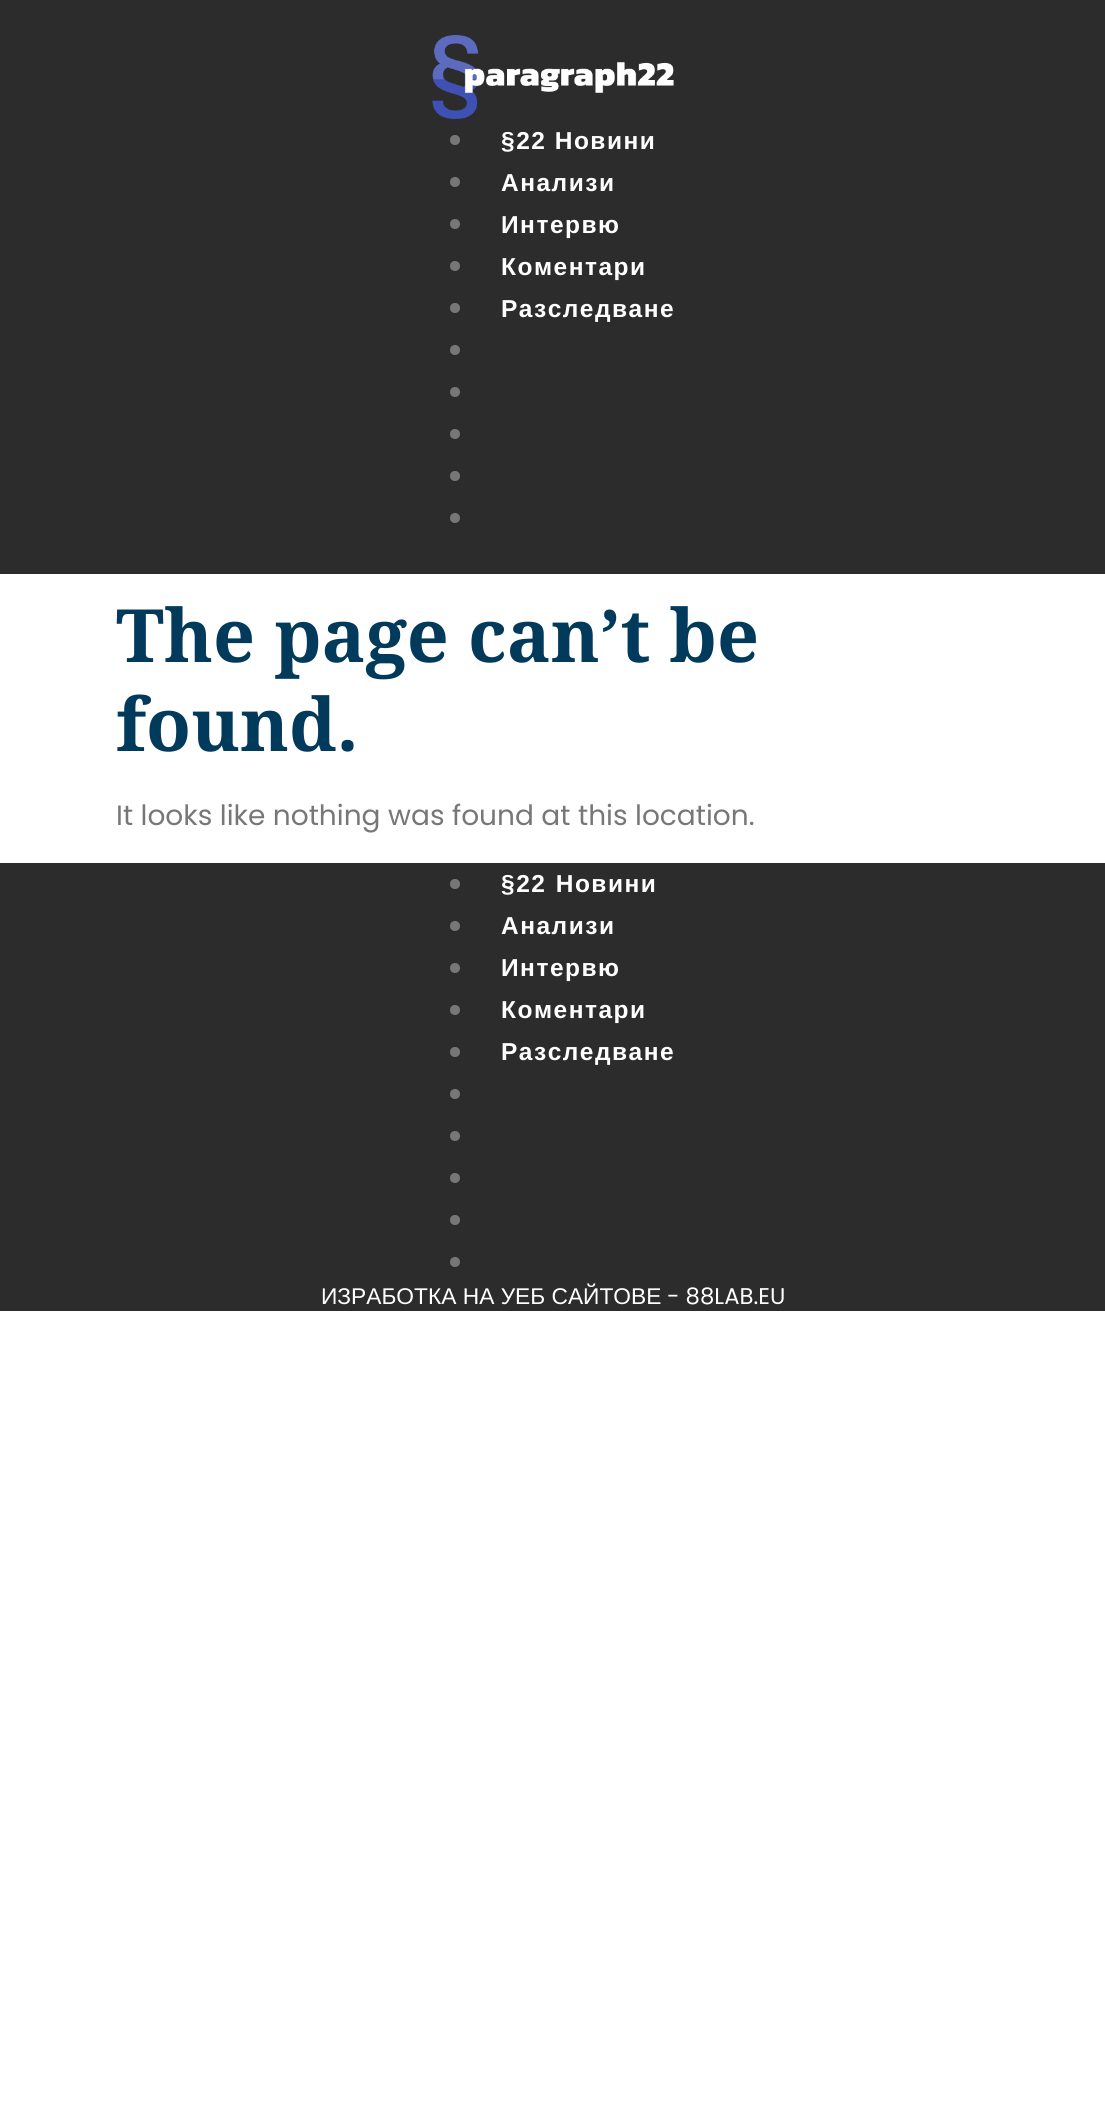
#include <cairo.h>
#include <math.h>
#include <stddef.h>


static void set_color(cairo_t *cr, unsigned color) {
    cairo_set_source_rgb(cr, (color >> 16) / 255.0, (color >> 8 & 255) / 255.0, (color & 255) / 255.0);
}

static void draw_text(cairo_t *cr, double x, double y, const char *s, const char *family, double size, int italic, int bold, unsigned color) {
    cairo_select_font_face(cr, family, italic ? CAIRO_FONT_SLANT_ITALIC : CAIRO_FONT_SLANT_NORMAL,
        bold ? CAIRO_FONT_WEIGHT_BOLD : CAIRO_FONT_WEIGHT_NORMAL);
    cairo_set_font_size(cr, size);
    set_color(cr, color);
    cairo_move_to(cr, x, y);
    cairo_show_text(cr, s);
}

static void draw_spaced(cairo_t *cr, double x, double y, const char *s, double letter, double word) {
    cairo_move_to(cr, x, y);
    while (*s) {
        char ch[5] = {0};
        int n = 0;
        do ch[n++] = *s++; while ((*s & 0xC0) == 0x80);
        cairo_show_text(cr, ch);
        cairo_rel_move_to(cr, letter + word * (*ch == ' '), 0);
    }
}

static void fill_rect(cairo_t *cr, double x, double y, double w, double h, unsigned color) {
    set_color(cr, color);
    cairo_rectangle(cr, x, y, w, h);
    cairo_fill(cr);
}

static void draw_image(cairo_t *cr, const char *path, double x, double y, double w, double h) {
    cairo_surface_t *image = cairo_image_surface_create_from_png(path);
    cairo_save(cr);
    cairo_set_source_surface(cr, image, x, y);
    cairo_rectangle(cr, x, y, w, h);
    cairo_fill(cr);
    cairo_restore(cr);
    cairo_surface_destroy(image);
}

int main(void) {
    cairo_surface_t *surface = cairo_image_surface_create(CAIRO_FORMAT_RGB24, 1105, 2118);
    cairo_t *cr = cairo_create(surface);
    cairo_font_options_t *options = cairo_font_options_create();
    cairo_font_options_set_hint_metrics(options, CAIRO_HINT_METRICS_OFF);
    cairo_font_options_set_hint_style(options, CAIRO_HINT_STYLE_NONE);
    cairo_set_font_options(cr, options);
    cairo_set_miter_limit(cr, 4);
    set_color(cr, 0xFFFFFF);
    cairo_paint(cr);
    fill_rect(cr, 0, 0, 1105, 574, 0x2C2C2C);
    draw_image(cr, "assets/img1.png", 432, 35, 242, 84);
    set_color(cr, 0x777777);
    cairo_arc(cr, 455, 140, 5, 0, 2 * M_PI);
    cairo_fill(cr);
    cairo_select_font_face(cr, "Liberation Sans", CAIRO_FONT_SLANT_NORMAL, CAIRO_FONT_WEIGHT_BOLD);
    cairo_set_font_size(cr, 24.5);
    set_color(cr, 0xFFFFFF);
    draw_spaced(cr, 501, 149, "§22 Новини", 1.5, 0);
    set_color(cr, 0x777777);
    cairo_new_path(cr);
    cairo_arc(cr, 455, 182, 5, 0, 2 * M_PI);
    cairo_fill(cr);
    set_color(cr, 0xFFFFFF);
    draw_spaced(cr, 501, 191, "Анализи", 1.5, 0);
    set_color(cr, 0x777777);
    cairo_new_path(cr);
    cairo_arc(cr, 455, 224, 5, 0, 2 * M_PI);
    cairo_fill(cr);
    set_color(cr, 0xFFFFFF);
    draw_spaced(cr, 501, 233, "Интервю", 1.5, 0);
    set_color(cr, 0x777777);
    cairo_new_path(cr);
    cairo_arc(cr, 455, 266, 5, 0, 2 * M_PI);
    cairo_fill(cr);
    set_color(cr, 0xFFFFFF);
    draw_spaced(cr, 501, 275, "Коментари", 1.5, 0);
    set_color(cr, 0x777777);
    cairo_new_path(cr);
    cairo_arc(cr, 455, 308, 5, 0, 2 * M_PI);
    cairo_fill(cr);
    set_color(cr, 0xFFFFFF);
    draw_spaced(cr, 501, 317, "Разследване", 1.5, 0);
    set_color(cr, 0x777777);
    cairo_new_path(cr);
    cairo_arc(cr, 455, 350, 5, 0, 2 * M_PI);
    cairo_fill(cr);
    cairo_arc(cr, 455, 392, 5, 0, 2 * M_PI);
    cairo_fill(cr);
    cairo_arc(cr, 455, 434, 5, 0, 2 * M_PI);
    cairo_fill(cr);
    cairo_arc(cr, 455, 476, 5, 0, 2 * M_PI);
    cairo_fill(cr);
    cairo_arc(cr, 455, 518, 5, 0, 2 * M_PI);
    cairo_fill(cr);
    draw_text(cr, 116, 662, "The page can’t be", "Noto Serif", 73.5, 0, 1, 0x023A5B);
    draw_text(cr, 116, 751, "found.", "Noto Serif", 73.5, 0, 1, 0x023A5B);
    draw_text(cr, 116, 825, "It looks like nothing was found at this location.", "Poppins", 28, 0, 0, 0x777777);
    fill_rect(cr, 0, 863, 1105, 448, 0x2C2C2C);
    set_color(cr, 0x777777);
    cairo_new_path(cr);
    cairo_arc(cr, 455, 884, 5, 0, 2 * M_PI);
    cairo_fill(cr);
    cairo_select_font_face(cr, "Liberation Sans", CAIRO_FONT_SLANT_NORMAL, CAIRO_FONT_WEIGHT_BOLD);
    cairo_set_font_size(cr, 24.5);
    set_color(cr, 0xFFFFFF);
    draw_spaced(cr, 501, 892, "§22 Новини", 1.5, 1);
    set_color(cr, 0x777777);
    cairo_new_path(cr);
    cairo_arc(cr, 455, 926, 5, 0, 2 * M_PI);
    cairo_fill(cr);
    set_color(cr, 0xFFFFFF);
    draw_spaced(cr, 501, 934, "Анализи", 1.5, 0);
    set_color(cr, 0x777777);
    cairo_new_path(cr);
    cairo_arc(cr, 455, 968, 5, 0, 2 * M_PI);
    cairo_fill(cr);
    set_color(cr, 0xFFFFFF);
    draw_spaced(cr, 501, 976, "Интервю", 1.5, 0);
    set_color(cr, 0x777777);
    cairo_new_path(cr);
    cairo_arc(cr, 455, 1010, 5, 0, 2 * M_PI);
    cairo_fill(cr);
    set_color(cr, 0xFFFFFF);
    draw_spaced(cr, 501, 1018, "Коментари", 1.5, 0);
    set_color(cr, 0x777777);
    cairo_new_path(cr);
    cairo_arc(cr, 455, 1052, 5, 0, 2 * M_PI);
    cairo_fill(cr);
    set_color(cr, 0xFFFFFF);
    draw_spaced(cr, 501, 1060, "Разследване", 1.5, 0);
    set_color(cr, 0x777777);
    cairo_new_path(cr);
    cairo_arc(cr, 455, 1094, 5, 0, 2 * M_PI);
    cairo_fill(cr);
    cairo_arc(cr, 455, 1136, 5, 0, 2 * M_PI);
    cairo_fill(cr);
    cairo_arc(cr, 455, 1178, 5, 0, 2 * M_PI);
    cairo_fill(cr);
    cairo_arc(cr, 455, 1220, 5, 0, 2 * M_PI);
    cairo_fill(cr);
    cairo_arc(cr, 455, 1262, 5, 0, 2 * M_PI);
    cairo_fill(cr);
    draw_text(cr, 321, 1304, "ИЗРАБОТКА НА УЕБ САЙТОВЕ", "Liberation Sans", 22.75, 0, 0, 0xFFFFFF);
    draw_text(cr, 667, 1304, "- 88LAB.EU", "Poppins", 22.75, 0, 0, 0xFFFFFF);
    cairo_surface_write_to_png(surface, "output.png");
    cairo_font_options_destroy(options);
    cairo_destroy(cr);
    cairo_surface_destroy(surface);
    return 0;
}
